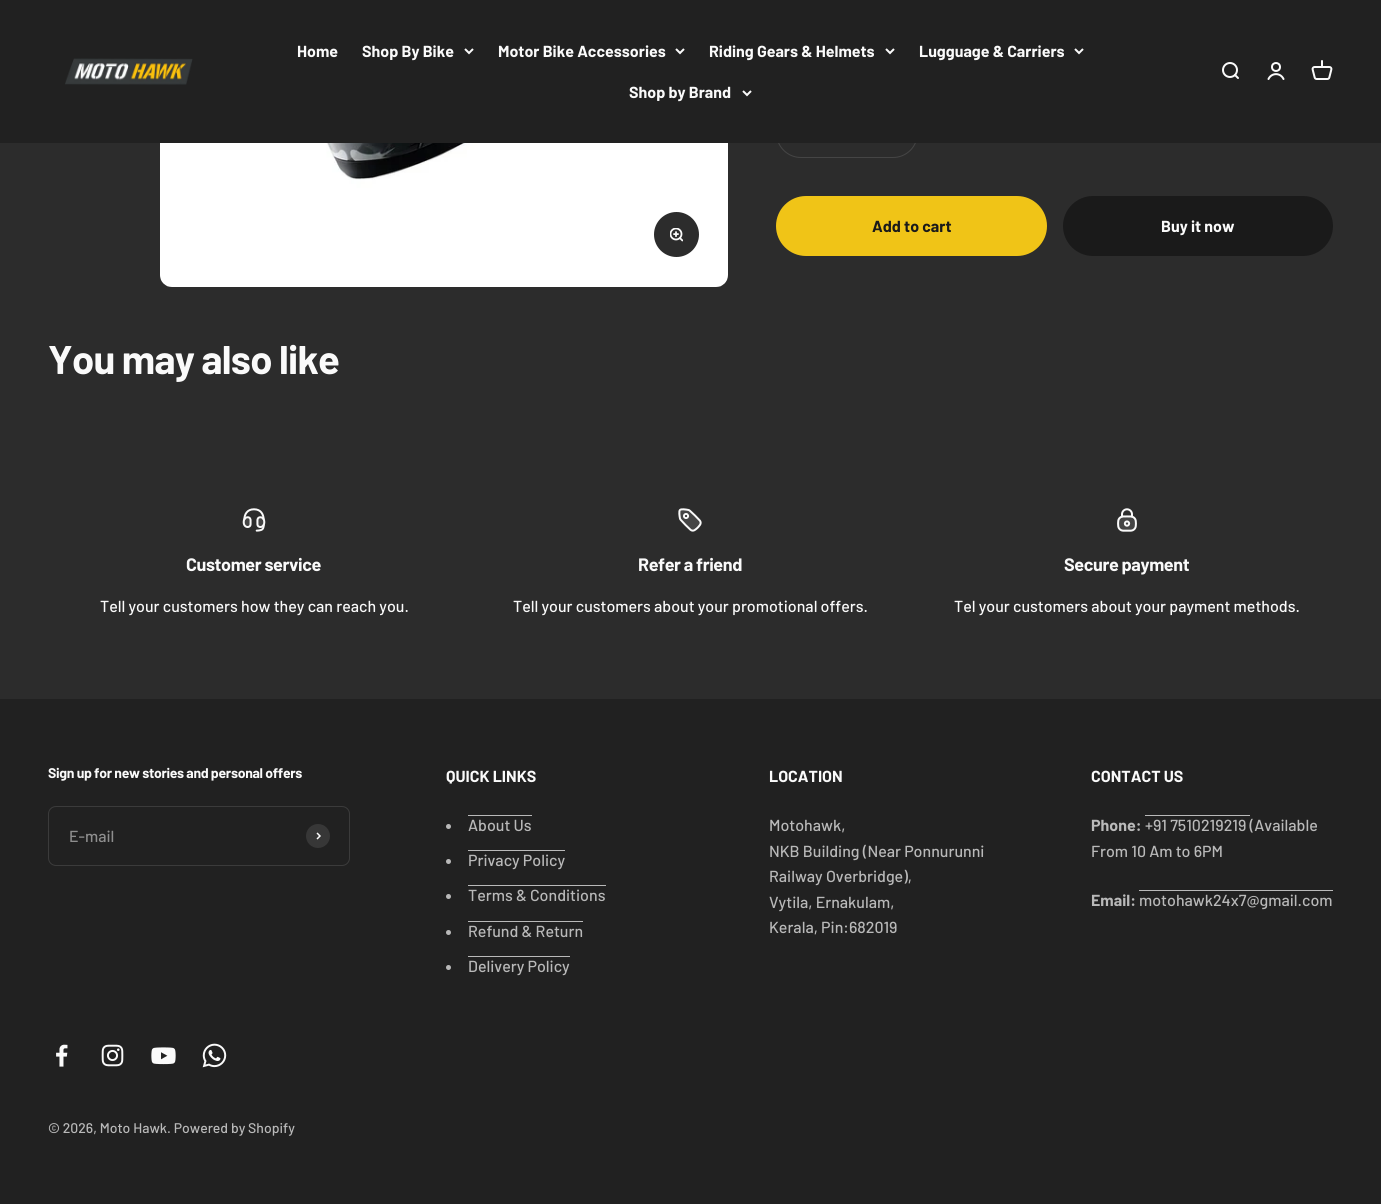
#include <cairo.h>
#include <math.h>
#include <stddef.h>


static void set_color(cairo_t *cr, unsigned color) {
    cairo_set_source_rgb(cr, (color >> 16) / 255.0, (color >> 8 & 255) / 255.0, (color & 255) / 255.0);
}

static void draw_text(cairo_t *cr, double x, double y, const char *s, const char *family, double size, int italic, int bold, unsigned color) {
    cairo_select_font_face(cr, family, italic ? CAIRO_FONT_SLANT_ITALIC : CAIRO_FONT_SLANT_NORMAL,
        bold ? CAIRO_FONT_WEIGHT_BOLD : CAIRO_FONT_WEIGHT_NORMAL);
    cairo_set_font_size(cr, size);
    set_color(cr, color);
    cairo_move_to(cr, x, y);
    cairo_show_text(cr, s);
}

static void draw_spaced(cairo_t *cr, double x, double y, const char *s, double letter, double word) {
    cairo_move_to(cr, x, y);
    while (*s) {
        char ch[5] = {0};
        int n = 0;
        do ch[n++] = *s++; while ((*s & 0xC0) == 0x80);
        cairo_show_text(cr, ch);
        cairo_rel_move_to(cr, letter + word * (*ch == ' '), 0);
    }
}

static void fill_rect(cairo_t *cr, double x, double y, double w, double h, unsigned color) {
    set_color(cr, color);
    cairo_rectangle(cr, x, y, w, h);
    cairo_fill(cr);
}

static void rounded_rect(cairo_t *cr, double x, double y, double w, double h, double r) {
    cairo_new_sub_path(cr);
    cairo_arc(cr, x + w - r, y + h - r, r, 0, M_PI / 2);
    cairo_arc(cr, x + r, y + h - r, r, M_PI / 2, M_PI);
    cairo_arc(cr, x + r, y + r, r, M_PI, 1.5 * M_PI);
    cairo_arc(cr, x + w - r, y + r, r, 1.5 * M_PI, 2 * M_PI);
    cairo_close_path(cr);
}

static void draw_image(cairo_t *cr, const char *path, double x, double y, double w, double h) {
    cairo_surface_t *image = cairo_image_surface_create_from_png(path);
    cairo_save(cr);
    cairo_set_source_surface(cr, image, x, y);
    cairo_rectangle(cr, x, y, w, h);
    cairo_fill(cr);
    cairo_restore(cr);
    cairo_surface_destroy(image);
}

int main(void) {
    cairo_surface_t *surface = cairo_image_surface_create(CAIRO_FORMAT_RGB24, 1381, 1204);
    cairo_t *cr = cairo_create(surface);
    cairo_font_options_t *options = cairo_font_options_create();
    cairo_font_options_set_hint_metrics(options, CAIRO_HINT_METRICS_OFF);
    cairo_font_options_set_hint_style(options, CAIRO_HINT_STYLE_NONE);
    cairo_set_font_options(cr, options);
    cairo_set_miter_limit(cr, 4);
    set_color(cr, 0x2C2C2C);
    cairo_paint(cr);
    rounded_rect(cr, 776.5, 108.5, 141, 49, 24.5);
    set_color(cr, 0x454545);
    cairo_set_line_width(cr, 1);
    cairo_stroke(cr);
    fill_rect(cr, 0, 0, 1381, 143, 0x212121);
    draw_image(cr, "assets/img1.png", 65, 58, 128, 27);
    draw_text(cr, 297, 57, "Home", "Barlow", 16, 0, 1, 0xFAFAFA);
    draw_text(cr, 362, 57, "Shop By Bike", "Barlow", 16, 0, 1, 0xFAFAFA);
    cairo_new_path(cr);
    cairo_move_to(cr, 465, 49);
    cairo_line_to(cr, 469, 53);
    cairo_line_to(cr, 473, 49);
    cairo_set_line_width(cr, 2);
    cairo_stroke(cr);
    draw_text(cr, 498, 57, "Motor Bike Accessories", "Barlow", 16, 0, 1, 0xFAFAFA);
    cairo_new_path(cr);
    cairo_move_to(cr, 676, 49);
    cairo_line_to(cr, 680, 53);
    cairo_line_to(cr, 684, 49);
    cairo_stroke(cr);
    draw_text(cr, 709, 57, "Riding Gears & Helmets", "Barlow", 16, 0, 1, 0xFAFAFA);
    cairo_new_path(cr);
    cairo_move_to(cr, 886, 49);
    cairo_line_to(cr, 890, 53);
    cairo_line_to(cr, 894, 49);
    cairo_stroke(cr);
    draw_text(cr, 919, 57, "Lugguage & Carriers", "Barlow", 16, 0, 1, 0xFAFAFA);
    cairo_new_path(cr);
    cairo_move_to(cr, 1075, 49);
    cairo_line_to(cr, 1079, 53);
    cairo_line_to(cr, 1083, 49);
    cairo_stroke(cr);
    draw_text(cr, 629, 98, "Shop by Brand", "Barlow", 16, 0, 1, 0xFAFAFA);
    cairo_new_path(cr);
    cairo_move_to(cr, 743, 91);
    cairo_line_to(cr, 747, 95);
    cairo_line_to(cr, 751, 91);
    cairo_stroke(cr);
    draw_image(cr, "assets/img2.png", 1222, 62, 17, 17);
    cairo_arc(cr, 1276, 67, 4, 0, 2 * M_PI);
    cairo_stroke(cr);
    cairo_new_path(cr);
    cairo_move_to(cr, 1268.5, 79);
    cairo_curve_to(cr, 1271.5, 72.5, 1280.5, 72.5, 1283.5, 79);
    cairo_set_line_cap(cr, CAIRO_LINE_CAP_ROUND);
    cairo_stroke(cr);
    draw_image(cr, "assets/img3.png", 1311, 60, 22, 20);
    draw_image(cr, "assets/img4.png", 160, 143, 568, 144);
    set_color(cr, 0x2C2C2C);
    cairo_arc(cr, 676.5, 234.5, 22.5, 0, 2 * M_PI);
    cairo_fill(cr);
    draw_image(cr, "assets/img5.png", 670, 228, 13, 14);
    set_color(cr, 0xF0C417);
    rounded_rect(cr, 776, 196, 271, 60, 30);
    cairo_fill(cr);
    draw_text(cr, 872, 232, "Add to cart", "Barlow", 16, 0, 1, 0x1A1A1A);
    rounded_rect(cr, 1063, 196, 270, 60, 30);
    cairo_fill(cr);
    draw_text(cr, 1161, 232, "Buy it now", "Barlow", 16, 0, 1, 0xFAFAFA);
    cairo_set_font_size(cr, 40);
    draw_spaced(cr, 48, 374, "You may also like", -0.75, 0);
    draw_image(cr, "assets/img6.png", 242, 508, 24, 24);
    cairo_set_font_size(cr, 18);
    draw_spaced(cr, 186, 571, "Customer service", -0.4, 0);
    draw_text(cr, 100, 612, "Tell your customers how they can reach you.", "Barlow Medium", 16, 0, 0, 0xFAFAFA);
    draw_image(cr, "assets/img7.png", 678, 508, 24, 24);
    cairo_select_font_face(cr, "Barlow", CAIRO_FONT_SLANT_NORMAL, CAIRO_FONT_WEIGHT_BOLD);
    cairo_set_font_size(cr, 18);
    draw_spaced(cr, 638, 571, "Refer a friend", -0.4, 0);
    draw_text(cr, 513, 612, "Tell your customers about your promotional offers.", "Barlow Medium", 16, 0, 0, 0xFAFAFA);
    draw_image(cr, "assets/img8.png", 1117, 508, 20, 24);
    cairo_select_font_face(cr, "Barlow", CAIRO_FONT_SLANT_NORMAL, CAIRO_FONT_WEIGHT_BOLD);
    cairo_set_font_size(cr, 18);
    draw_spaced(cr, 1064, 571, "Secure payment", -0.4, 0);
    draw_text(cr, 954, 612, "Tel your customers about your payment methods.", "Barlow Medium", 16, 0, 0, 0xFAFAFA);
    fill_rect(cr, 0, 699, 1381, 505, 0x212121);
    cairo_select_font_face(cr, "Barlow", CAIRO_FONT_SLANT_NORMAL, CAIRO_FONT_WEIGHT_BOLD);
    cairo_set_font_size(cr, 14);
    set_color(cr, 0xFAFAFA);
    draw_spaced(cr, 48, 778, "Sign up for new stories and personal offers", -0.3, 0);
    rounded_rect(cr, 48.5, 806.5, 301, 59, 7.5);
    set_color(cr, 0x3B3B3B);
    cairo_set_line_width(cr, 1);
    cairo_set_line_cap(cr, CAIRO_LINE_CAP_BUTT);
    cairo_stroke(cr);
    draw_text(cr, 69, 842, "E-mail", "Barlow Medium", 16, 0, 0, 0x8E8E8E);
    set_color(cr, 0x373737);
    cairo_new_path(cr);
    cairo_arc(cr, 318, 836, 12, 0, 2 * M_PI);
    cairo_fill(cr);
    cairo_new_path(cr);
    cairo_move_to(cr, 317, 839);
    cairo_line_to(cr, 320, 836);
    cairo_line_to(cr, 317, 833);
    set_color(cr, 0xFAFAFA);
    cairo_set_line_width(cr, 1.5);
    cairo_stroke(cr);
    draw_text(cr, 446, 782, "QUICK LINKS", "Barlow", 16, 0, 1, 0xFAFAFA);
    set_color(cr, 0xB9B9B9);
    cairo_new_path(cr);
    cairo_arc(cr, 448.5, 826.5, 2.5, 0, 2 * M_PI);
    cairo_fill(cr);
    draw_text(cr, 468, 831, "About Us", "Barlow Medium", 16, 0, 0, 0xB9B9B9);
    fill_rect(cr, 468, 815, 64, 1, 0xB9B9B9);
    cairo_new_path(cr);
    cairo_arc(cr, 448.5, 861.5, 2.5, 0, 2 * M_PI);
    cairo_fill(cr);
    draw_text(cr, 468, 866, "Privacy Policy", "Barlow Medium", 16, 0, 0, 0xB9B9B9);
    fill_rect(cr, 468, 850, 97, 1, 0xB9B9B9);
    cairo_new_path(cr);
    cairo_arc(cr, 448.5, 896.5, 2.5, 0, 2 * M_PI);
    cairo_fill(cr);
    draw_text(cr, 468, 901, "Terms & Conditions", "Barlow Medium", 16, 0, 0, 0xB9B9B9);
    fill_rect(cr, 468, 885, 138, 1, 0xB9B9B9);
    cairo_new_path(cr);
    cairo_arc(cr, 448.5, 932.5, 2.5, 0, 2 * M_PI);
    cairo_fill(cr);
    draw_text(cr, 468, 937, "Refund & Return", "Barlow Medium", 16, 0, 0, 0xB9B9B9);
    fill_rect(cr, 468, 921, 115, 1, 0xB9B9B9);
    cairo_new_path(cr);
    cairo_arc(cr, 448.5, 967.5, 2.5, 0, 2 * M_PI);
    cairo_fill(cr);
    draw_text(cr, 468, 972, "Delivery Policy", "Barlow Medium", 16, 0, 0, 0xB9B9B9);
    fill_rect(cr, 468, 956, 102, 1, 0xB9B9B9);
    draw_text(cr, 769, 782, "LOCATION", "Barlow", 16, 0, 1, 0xFAFAFA);
    draw_text(cr, 769, 831, "Motohawk,", "Barlow Medium", 16, 0, 0, 0xB9B9B9);
    draw_text(cr, 769, 857, "NKB Building (Near Ponnurunni", "Barlow Medium", 16, 0, 0, 0xB9B9B9);
    draw_text(cr, 769, 882, "Railway Overbridge),", "Barlow Medium", 16, 0, 0, 0xB9B9B9);
    draw_text(cr, 769, 908, "Vytila, Ernakulam,", "Barlow Medium", 16, 0, 0, 0xB9B9B9);
    draw_text(cr, 769, 933, "Kerala, Pin:682019", "Barlow Medium", 16, 0, 0, 0xB9B9B9);
    draw_text(cr, 1091, 782, "CONTACT US", "Barlow", 16, 0, 1, 0xFAFAFA);
    draw_text(cr, 1091, 831, "Phone:", "Barlow", 16, 0, 1, 0xB9B9B9);
    draw_text(cr, 1145, 831, "+91 7510219219 (Available", "Barlow Medium", 16, 0, 0, 0xB9B9B9);
    fill_rect(cr, 1145, 815, 105, 1, 0xB9B9B9);
    draw_text(cr, 1091, 857, "From 10 Am to 6PM", "Barlow Medium", 16, 0, 0, 0xB9B9B9);
    draw_text(cr, 1091, 906, "Email:", "Barlow", 16, 0, 1, 0xB9B9B9);
    draw_text(cr, 1139, 906, "motohawk24x7@gmail.com", "Barlow Medium", 16, 0, 0, 0xB9B9B9);
    fill_rect(cr, 1139, 890, 194, 1, 0xB9B9B9);
    draw_image(cr, "assets/img9.png", 56, 1044, 12, 23);
    draw_image(cr, "assets/img10.png", 101, 1044, 23, 23);
    draw_image(cr, "assets/img11.png", 151, 1047, 25, 18);
    draw_image(cr, "assets/img12.png", 202, 1043, 25, 25);
    draw_text(cr, 48, 1133, "© 2026, Moto Hawk. Powered by Shopify", "Barlow Medium", 14, 0, 0, 0xB9B9B9);
    cairo_surface_write_to_png(surface, "output.png");
    cairo_font_options_destroy(options);
    cairo_destroy(cr);
    cairo_surface_destroy(surface);
    return 0;
}
